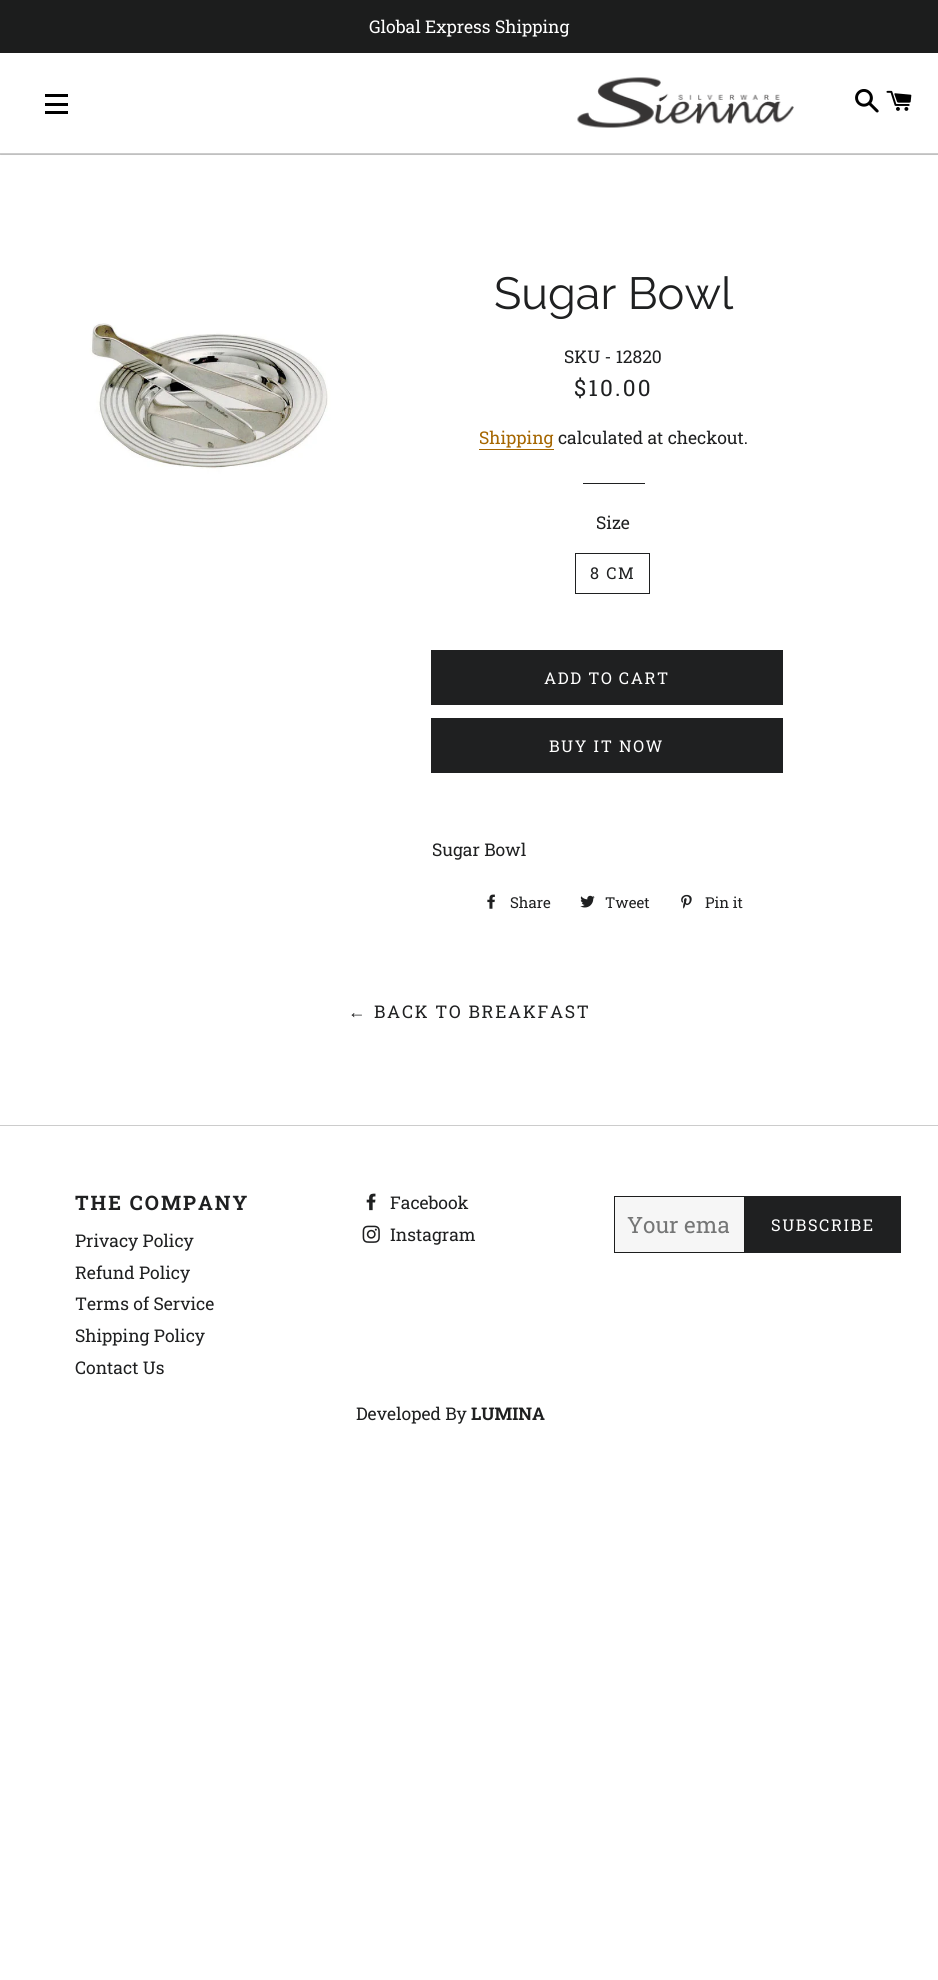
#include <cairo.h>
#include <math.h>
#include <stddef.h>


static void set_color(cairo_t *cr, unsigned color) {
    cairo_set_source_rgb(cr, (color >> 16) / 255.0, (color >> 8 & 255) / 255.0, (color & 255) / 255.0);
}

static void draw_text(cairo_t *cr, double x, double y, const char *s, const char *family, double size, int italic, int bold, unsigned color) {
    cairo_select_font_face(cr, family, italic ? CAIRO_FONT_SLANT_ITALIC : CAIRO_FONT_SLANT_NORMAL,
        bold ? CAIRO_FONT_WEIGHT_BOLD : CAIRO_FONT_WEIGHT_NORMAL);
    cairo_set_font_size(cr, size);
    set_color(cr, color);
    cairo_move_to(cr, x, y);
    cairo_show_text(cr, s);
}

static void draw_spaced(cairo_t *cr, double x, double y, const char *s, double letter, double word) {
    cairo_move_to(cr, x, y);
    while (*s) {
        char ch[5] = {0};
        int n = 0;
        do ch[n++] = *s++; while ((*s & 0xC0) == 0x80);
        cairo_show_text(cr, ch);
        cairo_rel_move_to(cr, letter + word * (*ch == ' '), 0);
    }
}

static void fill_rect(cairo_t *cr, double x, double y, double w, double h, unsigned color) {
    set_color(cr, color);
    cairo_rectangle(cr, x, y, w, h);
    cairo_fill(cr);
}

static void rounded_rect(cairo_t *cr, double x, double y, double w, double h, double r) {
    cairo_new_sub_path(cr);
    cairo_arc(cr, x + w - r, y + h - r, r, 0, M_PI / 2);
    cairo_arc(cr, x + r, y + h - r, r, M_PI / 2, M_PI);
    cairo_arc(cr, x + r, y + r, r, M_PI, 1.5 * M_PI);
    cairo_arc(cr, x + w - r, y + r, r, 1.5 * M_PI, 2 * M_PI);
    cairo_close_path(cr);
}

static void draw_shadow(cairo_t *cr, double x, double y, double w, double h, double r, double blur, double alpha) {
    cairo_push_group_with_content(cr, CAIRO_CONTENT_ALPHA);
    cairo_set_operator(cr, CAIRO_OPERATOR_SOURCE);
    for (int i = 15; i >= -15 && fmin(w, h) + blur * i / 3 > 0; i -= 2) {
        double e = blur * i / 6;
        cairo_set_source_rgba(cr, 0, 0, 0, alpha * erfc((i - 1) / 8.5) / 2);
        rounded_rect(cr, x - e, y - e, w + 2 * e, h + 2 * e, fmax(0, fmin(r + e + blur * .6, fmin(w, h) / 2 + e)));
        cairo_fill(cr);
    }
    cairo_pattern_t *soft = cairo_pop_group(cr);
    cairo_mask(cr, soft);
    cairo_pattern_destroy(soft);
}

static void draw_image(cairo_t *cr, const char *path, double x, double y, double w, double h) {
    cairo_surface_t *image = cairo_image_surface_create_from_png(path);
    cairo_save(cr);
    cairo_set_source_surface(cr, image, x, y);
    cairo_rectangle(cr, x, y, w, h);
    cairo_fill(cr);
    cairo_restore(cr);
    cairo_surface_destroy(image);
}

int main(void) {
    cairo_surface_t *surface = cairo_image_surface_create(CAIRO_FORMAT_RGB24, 938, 1980);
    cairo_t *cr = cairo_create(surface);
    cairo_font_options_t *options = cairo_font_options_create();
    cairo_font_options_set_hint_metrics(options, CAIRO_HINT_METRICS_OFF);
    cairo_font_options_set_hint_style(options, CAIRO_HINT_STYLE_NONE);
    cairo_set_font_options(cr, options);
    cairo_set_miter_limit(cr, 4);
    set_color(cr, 0xFFFFFF);
    cairo_paint(cr);
    set_color(cr, 0x000000);
    draw_shadow(cr, 0, 0, 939, 154, 0, 0.5, 1);
    fill_rect(cr, 0, 0, 938, 53, 0x1C1D1D);
    draw_text(cr, 369, 33, "Global Express Shipping", "Roboto Slab", 17.5, 0, 0, 0xFFFFFF);
    fill_rect(cr, 0, 53, 938, 100, 0xFFFFFF);
    fill_rect(cr, 0, 153, 938, 1, 0xCCCCCC);
    fill_rect(cr, 45, 94, 23, 3, 0x000000);
    fill_rect(cr, 45, 103, 23, 3, 0x000000);
    fill_rect(cr, 45, 111, 23, 3, 0x000000);
    draw_image(cr, "assets/img1.png", 577, 77, 217, 51);
    draw_image(cr, "assets/img2.png", 855, 89, 24, 24);
    draw_image(cr, "assets/img3.png", 886, 90, 26, 21);
    draw_image(cr, "assets/img4.png", 38, 229, 337, 337);
    draw_text(cr, 494, 309, "Sugar Bowl", "Raleway", 45, 0, 0, 0x1F2021);
    draw_text(cr, 564, 363, "SKU - 12820", "Roboto Slab", 17.5, 0, 0, 0x1F2021);
    cairo_set_font_size(cr, 22.5);
    draw_spaced(cr, 574, 396, "$10.00", 2.25, 0);
    draw_text(cr, 479, 444, "Shipping", "Roboto Slab", 17.5, 0, 0, 0xA56600);
    fill_rect(cr, 479, 449, 75, 1, 0xA56600);
    draw_text(cr, 558, 444, "calculated at checkout.", "Roboto Slab", 17.5, 0, 0, 0x1F2021);
    fill_rect(cr, 583, 483, 62, 1, 0x1F2021);
    draw_text(cr, 596, 529, "Size", "Roboto Slab", 17.5, 0, 0, 0x1F2021);
    cairo_rectangle(cr, 575.5, 553.5, 74, 40);
    cairo_set_line_width(cr, 1);
    cairo_stroke(cr);
    cairo_set_font_size(cr, 16.25);
    draw_spaced(cr, 590, 579, "8 CM", 1.6, 0);
    fill_rect(cr, 431, 650, 352, 55, 0x1F2021);
    set_color(cr, 0xFFFFFF);
    draw_spaced(cr, 544, 684, "ADD TO CART", 1.6, 0);
    fill_rect(cr, 431, 718, 352, 55, 0x1F2021);
    set_color(cr, 0xFFFFFF);
    draw_spaced(cr, 549, 752, "BUY IT NOW", 1.6, 0);
    draw_text(cr, 432, 856, "Sugar Bowl", "Roboto Slab", 17.5, 0, 0, 0x1F2021);
    draw_image(cr, "assets/img5.png", 487, 894, 8, 15);
    draw_text(cr, 510, 908, "Share", "Roboto Slab", 15, 0, 0, 0x1F2021);
    draw_image(cr, "assets/img6.png", 580, 895, 15, 13);
    draw_text(cr, 605, 908, "Tweet", "Roboto Slab", 15, 0, 0, 0x1F2021);
    draw_image(cr, "assets/img7.png", 681, 894, 11, 15);
    draw_text(cr, 705, 908, "Pin it", "Roboto Slab", 15, 0, 0, 0x1F2021);
    cairo_select_font_face(cr, "Liberation Serif", CAIRO_FONT_SLANT_NORMAL, CAIRO_FONT_WEIGHT_NORMAL);
    cairo_set_font_size(cr, 17.5);
    draw_spaced(cr, 348, 1018, "←", 1.75, 0);
    cairo_select_font_face(cr, "Roboto Slab", CAIRO_FONT_SLANT_NORMAL, CAIRO_FONT_WEIGHT_NORMAL);
    draw_spaced(cr, 374, 1018, "BACK TO BREAKFAST", 1.75, 0);
    fill_rect(cr, 0, 1125, 938, 1, 0xCCCCCC);
    cairo_select_font_face(cr, "Roboto Slab", CAIRO_FONT_SLANT_NORMAL, CAIRO_FONT_WEIGHT_BOLD);
    cairo_set_font_size(cr, 20);
    set_color(cr, 0x1F2021);
    draw_spaced(cr, 75, 1210, "THE COMPANY", 2, 0);
    draw_text(cr, 75, 1247, "Privacy Policy", "Roboto Slab", 17.5, 0, 0, 0x1F2021);
    draw_text(cr, 75, 1279, "Refund Policy", "Roboto Slab", 17.5, 0, 0, 0x1F2021);
    draw_text(cr, 75, 1310, "Terms of Service", "Roboto Slab", 17.5, 0, 0, 0x1F2021);
    draw_text(cr, 75, 1342, "Shipping Policy", "Roboto Slab", 17.5, 0, 0, 0x1F2021);
    draw_text(cr, 75, 1374, "Contact Us", "Roboto Slab", 17.5, 0, 0, 0x1F2021);
    draw_image(cr, "assets/img8.png", 366, 1193, 10, 18);
    draw_text(cr, 390, 1209, "Facebook", "Roboto Slab", 17.5, 0, 0, 0x1F2021);
    draw_image(cr, "assets/img9.png", 362, 1225, 18, 18);
    draw_text(cr, 390, 1241, "Instagram", "Roboto Slab", 17.5, 0, 0, 0x1F2021);
    set_color(cr, 0xF6F6F6);
    cairo_rectangle(cr, 614.5, 1196.5, 130, 56);
    cairo_fill_preserve(cr);
    set_color(cr, 0x1C1D1D);
    cairo_stroke(cr);
    draw_text(cr, 627, 1233, "Your ema", "Roboto Slab", 22.5, 0, 0, 0x757676);
    fill_rect(cr, 745, 1196, 156, 57, 0x1F2021);
    cairo_set_font_size(cr, 16.25);
    set_color(cr, 0xFFFFFF);
    draw_spaced(cr, 771, 1231, "SUBSCRIBE", 1.6, 0);
    draw_text(cr, 356, 1420, "Developed By", "Roboto Slab", 17.5, 0, 0, 0x1F2021);
    draw_text(cr, 471, 1420, "LUMINA", "Roboto Slab", 17.5, 0, 1, 0x1F2021);
    cairo_surface_write_to_png(surface, "output.png");
    cairo_font_options_destroy(options);
    cairo_destroy(cr);
    cairo_surface_destroy(surface);
    return 0;
}
